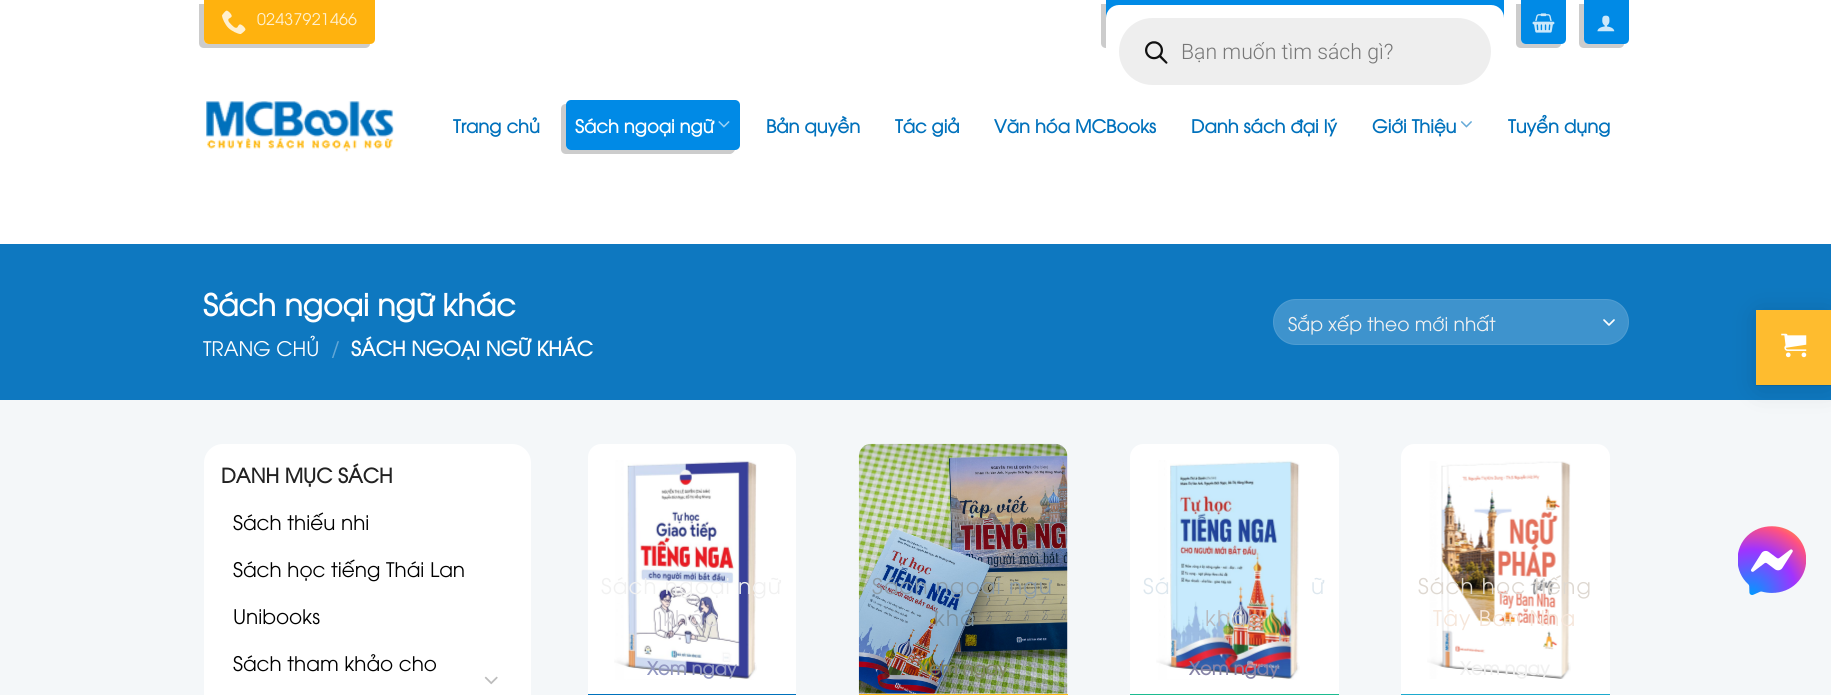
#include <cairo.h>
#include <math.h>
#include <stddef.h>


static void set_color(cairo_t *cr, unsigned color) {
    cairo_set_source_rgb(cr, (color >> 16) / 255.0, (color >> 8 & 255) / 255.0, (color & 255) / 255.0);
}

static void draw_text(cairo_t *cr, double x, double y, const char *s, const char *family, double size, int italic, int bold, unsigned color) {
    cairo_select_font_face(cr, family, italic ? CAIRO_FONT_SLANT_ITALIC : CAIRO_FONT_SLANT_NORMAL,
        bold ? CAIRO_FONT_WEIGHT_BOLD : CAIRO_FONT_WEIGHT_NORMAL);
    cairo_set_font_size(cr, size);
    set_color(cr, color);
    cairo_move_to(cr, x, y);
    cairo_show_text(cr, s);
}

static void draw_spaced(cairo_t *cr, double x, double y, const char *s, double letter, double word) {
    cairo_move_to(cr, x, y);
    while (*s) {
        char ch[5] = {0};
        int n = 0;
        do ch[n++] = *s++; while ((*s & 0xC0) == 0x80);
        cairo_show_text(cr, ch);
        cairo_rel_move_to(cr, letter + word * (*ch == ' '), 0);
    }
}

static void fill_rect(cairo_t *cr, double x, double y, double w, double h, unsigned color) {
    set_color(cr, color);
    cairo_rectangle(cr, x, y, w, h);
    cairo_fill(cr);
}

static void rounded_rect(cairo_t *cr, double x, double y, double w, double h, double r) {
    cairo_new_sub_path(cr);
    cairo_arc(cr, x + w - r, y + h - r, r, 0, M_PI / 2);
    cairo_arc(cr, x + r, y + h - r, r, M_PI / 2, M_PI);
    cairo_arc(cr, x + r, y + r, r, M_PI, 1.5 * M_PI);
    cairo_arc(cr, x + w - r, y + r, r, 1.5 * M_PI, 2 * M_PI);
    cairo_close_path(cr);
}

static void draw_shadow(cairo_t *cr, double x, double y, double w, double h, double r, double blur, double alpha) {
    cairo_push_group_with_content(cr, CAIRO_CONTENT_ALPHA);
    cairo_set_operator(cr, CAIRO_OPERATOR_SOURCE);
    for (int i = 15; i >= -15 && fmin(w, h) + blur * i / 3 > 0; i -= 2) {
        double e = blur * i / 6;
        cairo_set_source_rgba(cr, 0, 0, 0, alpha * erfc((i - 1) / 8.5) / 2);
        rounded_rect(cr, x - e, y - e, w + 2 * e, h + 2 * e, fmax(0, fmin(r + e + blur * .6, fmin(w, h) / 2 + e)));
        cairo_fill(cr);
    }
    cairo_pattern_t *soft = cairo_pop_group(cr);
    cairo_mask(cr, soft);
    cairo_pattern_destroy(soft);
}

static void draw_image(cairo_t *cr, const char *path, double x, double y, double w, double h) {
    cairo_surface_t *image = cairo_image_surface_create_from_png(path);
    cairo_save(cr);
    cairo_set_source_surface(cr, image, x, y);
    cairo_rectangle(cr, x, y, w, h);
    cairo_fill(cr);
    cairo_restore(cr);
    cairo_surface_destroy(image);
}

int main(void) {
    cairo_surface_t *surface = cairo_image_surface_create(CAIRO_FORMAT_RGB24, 1831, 695);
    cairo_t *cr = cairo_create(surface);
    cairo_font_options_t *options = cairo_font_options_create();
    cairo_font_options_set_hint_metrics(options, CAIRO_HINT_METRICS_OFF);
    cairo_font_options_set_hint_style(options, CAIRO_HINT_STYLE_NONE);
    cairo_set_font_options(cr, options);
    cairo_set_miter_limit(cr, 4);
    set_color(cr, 0xFFFFFF);
    cairo_paint(cr);
    set_color(cr, 0xCCCCCC);
    cairo_new_path(cr);
    cairo_move_to(cr, 199, 4);
    cairo_line_to(cr, 199, 43);
    cairo_curve_to(cr, 199, 46, 201, 48, 204, 48);
    cairo_line_to(cr, 365, 48);
    cairo_curve_to(cr, 368, 48, 370, 46, 370, 44);
    cairo_line_to(cr, 209, 44);
    cairo_curve_to(cr, 206, 44, 204, 42, 204, 39);
    cairo_line_to(cr, 204, 4);
    cairo_close_path(cr);
    cairo_fill(cr);
    set_color(cr, 0xFFB20E);
    cairo_new_path(cr);
    cairo_move_to(cr, 204, 0);
    cairo_line_to(cr, 375, 0);
    cairo_line_to(cr, 375, 39);
    cairo_curve_to(cr, 375, 42, 373, 44, 370, 44);
    cairo_line_to(cr, 209, 44);
    cairo_curve_to(cr, 206, 44, 204, 42, 204, 39);
    cairo_close_path(cr);
    cairo_fill(cr);
    draw_image(cr, "assets/img1.png", 222, 10, 24, 24);
    cairo_select_font_face(cr, "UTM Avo", CAIRO_FONT_SLANT_NORMAL, CAIRO_FONT_WEIGHT_NORMAL);
    cairo_set_font_size(cr, 16);
    set_color(cr, 0xFFF0CF);
    draw_spaced(cr, 257, 25, "02437921466", 0.25, 0);
    set_color(cr, 0xCCCCCC);
    cairo_new_path(cr);
    cairo_move_to(cr, 1516, 4);
    cairo_line_to(cr, 1516, 43);
    cairo_curve_to(cr, 1516, 46, 1518, 48, 1521, 48);
    cairo_line_to(cr, 1556, 48);
    cairo_curve_to(cr, 1559, 48, 1561, 46, 1561, 44);
    cairo_line_to(cr, 1526, 44);
    cairo_curve_to(cr, 1523, 44, 1521, 42, 1521, 39);
    cairo_line_to(cr, 1521, 4);
    cairo_close_path(cr);
    cairo_fill(cr);
    set_color(cr, 0x008AE6);
    cairo_new_path(cr);
    cairo_move_to(cr, 1521, 0);
    cairo_line_to(cr, 1566, 0);
    cairo_line_to(cr, 1566, 39);
    cairo_curve_to(cr, 1566, 42, 1564, 44, 1561, 44);
    cairo_line_to(cr, 1526, 44);
    cairo_curve_to(cr, 1523, 44, 1521, 42, 1521, 39);
    cairo_close_path(cr);
    cairo_fill(cr);
    draw_image(cr, "assets/img2.png", 1532, 13, 23, 20);
    set_color(cr, 0xCCCCCC);
    cairo_new_path(cr);
    cairo_move_to(cr, 1579, 4);
    cairo_line_to(cr, 1579, 43);
    cairo_curve_to(cr, 1579, 46, 1581, 48, 1584, 48);
    cairo_line_to(cr, 1619, 48);
    cairo_curve_to(cr, 1622, 48, 1624, 46, 1624, 44);
    cairo_line_to(cr, 1588, 44);
    cairo_curve_to(cr, 1583, 43, 1584, 37, 1584, 33);
    cairo_line_to(cr, 1584, 4);
    cairo_close_path(cr);
    cairo_fill(cr);
    set_color(cr, 0x008AE6);
    cairo_new_path(cr);
    cairo_move_to(cr, 1584, 0);
    cairo_line_to(cr, 1629, 0);
    cairo_line_to(cr, 1629, 39);
    cairo_curve_to(cr, 1629, 42, 1627, 44, 1624, 44);
    cairo_line_to(cr, 1589, 44);
    cairo_curve_to(cr, 1586, 44, 1584, 42, 1584, 39);
    cairo_close_path(cr);
    cairo_fill(cr);
    draw_image(cr, "assets/img3.png", 1597, 15, 18, 17);
    set_color(cr, 0xCCCCCC);
    cairo_new_path(cr);
    cairo_move_to(cr, 1101, 4);
    cairo_line_to(cr, 1101, 43);
    cairo_curve_to(cr, 1101, 46, 1103, 48, 1106, 48);
    cairo_line_to(cr, 1494, 48);
    cairo_curve_to(cr, 1497, 48, 1499, 46, 1499, 44);
    cairo_line_to(cr, 1111, 44);
    cairo_curve_to(cr, 1108, 44, 1106, 42, 1106, 39);
    cairo_line_to(cr, 1106, 4);
    cairo_close_path(cr);
    cairo_fill(cr);
    fill_rect(cr, 1106, 0, 398, 18, 0x008AE6);
    set_color(cr, 0xFFFFFF);
    rounded_rect(cr, 1106, 5, 398, 93, 13);
    cairo_fill(cr);
    set_color(cr, 0xEEEEEE);
    rounded_rect(cr, 1119, 18, 372, 67, 33.5);
    cairo_fill(cr);
    draw_image(cr, "assets/img4.png", 1145, 41, 23, 23);
    draw_text(cr, 1181, 59, "Bạn muốn tìm sách gì?", "Roboto Light", 21.25, 0, 0, 0x777777);
    draw_image(cr, "assets/img5.png", 206, 101, 188, 51);
    draw_text(cr, 453, 133, "Trang chủ", "UTM Avo", 18, 0, 1, 0x0071BC);
    set_color(cr, 0xCCCCCC);
    cairo_new_path(cr);
    cairo_move_to(cr, 566, 104);
    cairo_curve_to(cr, 563, 104, 561, 106, 561, 109);
    cairo_line_to(cr, 561, 149);
    cairo_curve_to(cr, 561, 152, 563, 154, 566, 154);
    cairo_line_to(cr, 730, 154);
    cairo_curve_to(cr, 732, 154, 734, 152, 735, 150);
    cairo_line_to(cr, 571, 150);
    cairo_curve_to(cr, 568, 150, 566, 148, 566, 145);
    cairo_close_path(cr);
    cairo_fill(cr);
    set_color(cr, 0x008AE6);
    rounded_rect(cr, 566, 100, 174, 50, 5);
    cairo_fill(cr);
    draw_text(cr, 575, 133, "Sách ngoại ngữ", "UTM Avo", 18, 0, 1, 0xFFFFFF);
    draw_image(cr, "assets/img6.png", 718, 121, 12, 7);
    draw_text(cr, 766, 133, "Bản quyền", "UTM Avo", 18, 0, 1, 0x0071BC);
    draw_text(cr, 895, 133, "Tác giả", "UTM Avo", 18, 0, 1, 0x0071BC);
    draw_text(cr, 994, 133, "Văn hóa MCBooks", "UTM Avo", 18, 0, 1, 0x0071BC);
    draw_text(cr, 1191, 133, "Danh sách đại lý", "UTM Avo", 18, 0, 1, 0x0071BC);
    draw_text(cr, 1372, 133, "Giới Thiệu", "UTM Avo", 18, 0, 1, 0x0071BC);
    draw_image(cr, "assets/img7.png", 1461, 121, 11, 7);
    draw_text(cr, 1508, 133, "Tuyển dụng", "UTM Avo", 18, 0, 1, 0x0071BC);
    fill_rect(cr, 0, 244, 1831, 156, 0x0E78C0);
    draw_text(cr, 203, 316, "Sách ngoại ngữ khác", "UTM Avo", 30, 0, 1, 0xFFFFFF);
    draw_text(cr, 203, 356, "TRANG CHỦ", "UTM Avo", 20, 0, 0, 0xFFFFFF);
    draw_text(cr, 331, 356, "/", "UTM Avo", 20, 0, 0, 0x62A7D6);
    draw_text(cr, 351, 356, "SÁCH NGOẠI NGỮ KHÁC", "UTM Avo", 20, 0, 1, 0xFFFFFF);
    set_color(cr, 0x3E93CD);
    rounded_rect(cr, 1273, 299, 356, 46, 23);
    cairo_fill(cr);
    cairo_new_path(cr);
    cairo_move_to(cr, 1604, 320);
    cairo_line_to(cr, 1609, 325);
    cairo_line_to(cr, 1614, 320);
    set_color(cr, 0xFFFFFF);
    cairo_set_line_width(cr, 1.7);
    cairo_set_line_cap(cr, CAIRO_LINE_CAP_ROUND);
    cairo_set_line_join(cr, CAIRO_LINE_JOIN_ROUND);
    cairo_stroke(cr);
    rounded_rect(cr, 1273.5, 299.5, 355, 45, 22.5);
    cairo_set_source_rgba(cr, 1, 1, 1, 0.09);
    cairo_set_line_width(cr, 1);
    cairo_set_line_cap(cr, CAIRO_LINE_CAP_BUTT);
    cairo_set_line_join(cr, CAIRO_LINE_JOIN_MITER);
    cairo_stroke(cr);
    draw_text(cr, 1288, 331, "Sắp xếp theo mới nhất", "UTM Avo", 18.75, 0, 0, 0xF1F1F1);
    fill_rect(cr, 0, 400, 1831, 295, 0xF4F7F9);
    set_color(cr, 0xFFFFFF);
    rounded_rect(cr, 204, 444, 327, 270, 19);
    cairo_fill(cr);
    draw_text(cr, 221, 483, "DANH MỤC SÁCH", "UTM Avo", 20, 0, 1, 0x222222);
    draw_text(cr, 233, 530, "Sách thiếu nhi", "UTM Avo", 20, 0, 0, 0x000000);
    draw_text(cr, 233, 577, "Sách học tiếng Thái Lan", "UTM Avo", 20, 0, 0, 0x000000);
    draw_text(cr, 233, 624, "Unibooks", "UTM Avo", 20, 0, 0, 0x000000);
    draw_text(cr, 233, 671, "Sách tham khảo cho", "UTM Avo", 20, 0, 0, 0x000000);
    draw_image(cr, "assets/img8.png", 484, 676, 14, 9);
    set_color(cr, 0xFFFFFF);
    cairo_new_path(cr);
    cairo_move_to(cr, 601, 444);
    cairo_line_to(cr, 783, 444);
    cairo_curve_to(cr, 790, 444, 796, 450, 796, 457);
    cairo_line_to(cr, 796, 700);
    cairo_line_to(cr, 588, 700);
    cairo_line_to(cr, 588, 457);
    cairo_curve_to(cr, 588, 450, 594, 444, 601, 444);
    cairo_close_path(cr);
    cairo_fill(cr);
    fill_rect(cr, 588, 694, 208, 1, 0x0071BC);
    draw_image(cr, "assets/img9.png", 614, 460, 143, 220);
    cairo_set_font_size(cr, 21.5);
    set_color(cr, 0xF1F1F1);
    draw_spaced(cr, 601, 594, "Sách ngoại ngữ", 1.1, 0);
    set_color(cr, 0xD8D7DC);
    draw_spaced(cr, 663, 626, "khác", 1.1, 0);
    draw_text(cr, 647, 675, "Xem ngay", "UTM Avo", 18, 0, 1, 0x9197C1);
    set_color(cr, 0xFFFFFF);
    cairo_new_path(cr);
    cairo_move_to(cr, 872, 444);
    cairo_line_to(cr, 1055, 444);
    cairo_curve_to(cr, 1062, 444, 1068, 450, 1068, 457);
    cairo_line_to(cr, 1068, 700);
    cairo_line_to(cr, 859, 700);
    cairo_line_to(cr, 859, 457);
    cairo_curve_to(cr, 859, 450, 865, 444, 872, 444);
    cairo_close_path(cr);
    cairo_fill(cr);
    fill_rect(cr, 859, 694, 209, 1, 0xFDB813);
    draw_image(cr, "assets/img10.png", 858, 443, 210, 251);
    cairo_select_font_face(cr, "UTM Avo", CAIRO_FONT_SLANT_NORMAL, CAIRO_FONT_WEIGHT_NORMAL);
    cairo_set_font_size(cr, 21.5);
    set_color(cr, 0x8B9CA8);
    draw_spaced(cr, 872, 594, "Sách ngoại ngữ", 1.1, 0);
    set_color(cr, 0x7B92A1);
    draw_spaced(cr, 934, 626, "khá", 1.1, 0);
    draw_text(cr, 918, 675, "Xem ngay", "UTM Avo", 18, 0, 1, 0x7F8561);
    set_color(cr, 0xFFFFFF);
    cairo_new_path(cr);
    cairo_move_to(cr, 1143, 444);
    cairo_line_to(cr, 1326, 444);
    cairo_curve_to(cr, 1333, 444, 1339, 450, 1339, 457);
    cairo_line_to(cr, 1339, 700);
    cairo_line_to(cr, 1130, 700);
    cairo_line_to(cr, 1130, 457);
    cairo_curve_to(cr, 1130, 450, 1136, 444, 1143, 444);
    cairo_close_path(cr);
    cairo_fill(cr);
    fill_rect(cr, 1130, 694, 209, 1, 0x1DBB90);
    draw_image(cr, "assets/img11.png", 1156, 460, 144, 220);
    cairo_select_font_face(cr, "UTM Avo", CAIRO_FONT_SLANT_NORMAL, CAIRO_FONT_WEIGHT_NORMAL);
    cairo_set_font_size(cr, 21.5);
    set_color(cr, 0xDDE7EE);
    draw_spaced(cr, 1143, 594, "Sá", 1.1, 0);
    draw_spaced(cr, 1311, 594, "ữ", 1.1, 0);
    set_color(cr, 0xB7BABF);
    draw_spaced(cr, 1205, 626, "khác", 1.1, 0);
    draw_text(cr, 1189, 675, "Xem ngay", "UTM Avo", 18, 0, 1, 0x8683A7);
    set_color(cr, 0xFFFFFF);
    cairo_new_path(cr);
    cairo_move_to(cr, 1414, 444);
    cairo_line_to(cr, 1597, 444);
    cairo_curve_to(cr, 1604, 444, 1610, 450, 1610, 457);
    cairo_line_to(cr, 1610, 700);
    cairo_line_to(cr, 1401, 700);
    cairo_line_to(cr, 1401, 457);
    cairo_curve_to(cr, 1401, 450, 1407, 444, 1414, 444);
    cairo_close_path(cr);
    cairo_fill(cr);
    fill_rect(cr, 1401, 694, 209, 1, 0x1EAACE);
    draw_image(cr, "assets/img12.png", 1427, 461, 144, 218);
    cairo_select_font_face(cr, "UTM Avo", CAIRO_FONT_SLANT_NORMAL, CAIRO_FONT_WEIGHT_NORMAL);
    cairo_set_font_size(cr, 21.5);
    set_color(cr, 0xDED8D1);
    draw_spaced(cr, 1418, 594, "Sách học tiếng", 1.1, 0);
    set_color(cr, 0xF6E6DA);
    draw_spaced(cr, 1433, 626, "Tây Ban Nha", 1.1, 0);
    draw_text(cr, 1460, 675, "Xem ngay", "UTM Avo", 18, 0, 1, 0xF1F1F1);
    set_color(cr, 0x000000);
    draw_shadow(cr, 1759, 315, 70, 71, 0, 15, 0.14);
    cairo_set_source_rgba(cr, 0, 0, 0, 0.1);
    cairo_rectangle(cr, 1756, 385, 75, 1);
    cairo_fill(cr);
    fill_rect(cr, 1756, 310, 75, 75, 0xFEBC2F);
    draw_image(cr, "assets/img13.png", 1781, 333, 26, 25);
    draw_image(cr, "assets/img14.png", 1738, 526, 68, 69);
    cairo_surface_write_to_png(surface, "output.png");
    cairo_font_options_destroy(options);
    cairo_destroy(cr);
    cairo_surface_destroy(surface);
    return 0;
}
